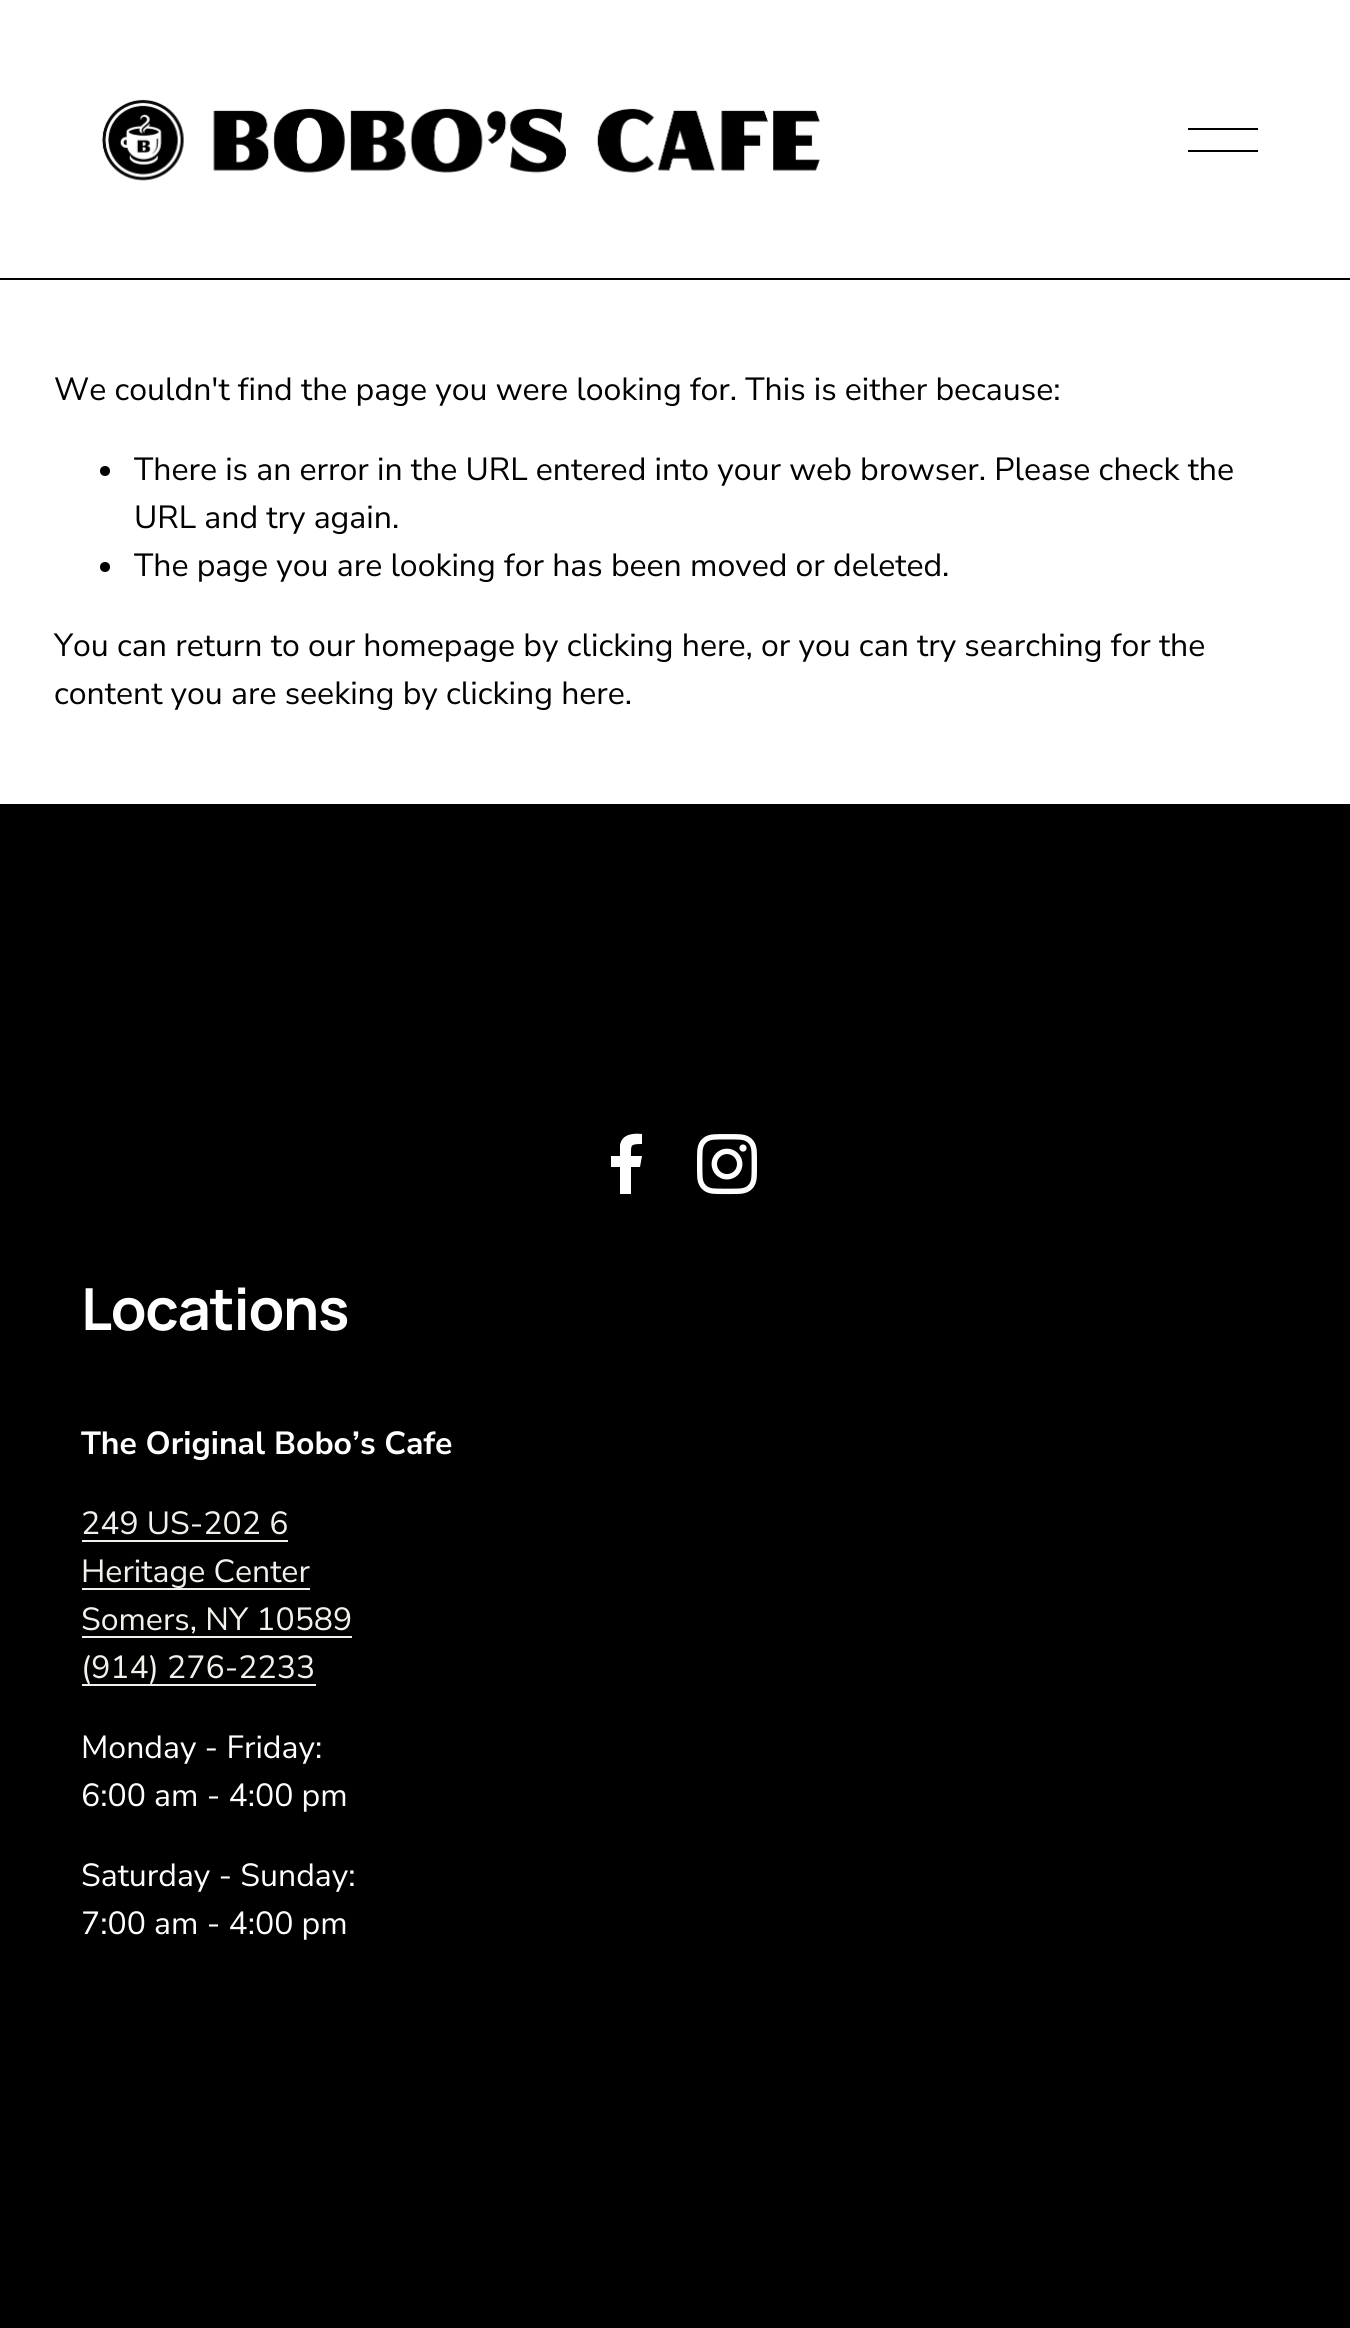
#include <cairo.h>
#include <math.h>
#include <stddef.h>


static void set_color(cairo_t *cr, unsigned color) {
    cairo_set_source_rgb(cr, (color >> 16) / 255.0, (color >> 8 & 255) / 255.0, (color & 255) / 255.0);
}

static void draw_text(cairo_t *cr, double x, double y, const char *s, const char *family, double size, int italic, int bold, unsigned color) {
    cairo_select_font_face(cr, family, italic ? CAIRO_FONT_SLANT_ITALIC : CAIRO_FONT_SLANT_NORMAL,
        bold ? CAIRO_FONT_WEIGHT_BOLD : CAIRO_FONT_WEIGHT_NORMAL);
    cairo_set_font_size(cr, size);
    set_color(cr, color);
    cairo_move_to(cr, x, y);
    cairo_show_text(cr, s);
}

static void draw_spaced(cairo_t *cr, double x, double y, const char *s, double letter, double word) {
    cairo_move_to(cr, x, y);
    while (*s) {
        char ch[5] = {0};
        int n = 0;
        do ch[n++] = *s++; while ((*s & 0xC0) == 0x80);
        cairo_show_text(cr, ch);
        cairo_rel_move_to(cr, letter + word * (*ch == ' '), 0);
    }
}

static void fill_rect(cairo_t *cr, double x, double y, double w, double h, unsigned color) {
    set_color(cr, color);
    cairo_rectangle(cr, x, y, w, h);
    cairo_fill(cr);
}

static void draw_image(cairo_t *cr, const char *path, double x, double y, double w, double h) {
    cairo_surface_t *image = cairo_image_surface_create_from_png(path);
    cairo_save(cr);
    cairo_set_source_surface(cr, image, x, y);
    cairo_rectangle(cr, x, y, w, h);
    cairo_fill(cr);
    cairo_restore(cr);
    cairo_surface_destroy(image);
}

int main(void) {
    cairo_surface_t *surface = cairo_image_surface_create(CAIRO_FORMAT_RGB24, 1350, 2328);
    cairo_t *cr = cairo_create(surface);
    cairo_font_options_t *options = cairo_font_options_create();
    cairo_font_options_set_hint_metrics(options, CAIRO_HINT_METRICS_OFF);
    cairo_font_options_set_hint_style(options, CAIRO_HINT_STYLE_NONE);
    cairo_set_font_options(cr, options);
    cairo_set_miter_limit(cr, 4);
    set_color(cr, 0xFFFFFF);
    cairo_paint(cr);
    draw_image(cr, "assets/img1.png", 101, 99, 719, 82);
    fill_rect(cr, 1188, 128, 70, 2, 0x000000);
    fill_rect(cr, 1188, 150, 70, 2, 0x000000);
    fill_rect(cr, 0, 278, 1350, 2, 0x000000);
    draw_text(cr, 54, 400, "We couldn't find the page you were looking for. This is either because:", "Nunito Sans", 32, 0, 0, 0x000000);
    cairo_new_path(cr);
    cairo_arc(cr, 105, 471, 5, 0, 2 * M_PI);
    cairo_fill(cr);
    draw_text(cr, 134, 480, "There is an error in the URL entered into your web browser. Please check the", "Nunito Sans", 32, 0, 0, 0x000000);
    draw_text(cr, 134, 528, "URL and try again.", "Nunito Sans", 32, 0, 0, 0x000000);
    cairo_new_path(cr);
    cairo_arc(cr, 105, 567, 5, 0, 2 * M_PI);
    cairo_fill(cr);
    draw_text(cr, 134, 576, "The page you are looking for has been moved or deleted.", "Nunito Sans", 32, 0, 0, 0x000000);
    draw_text(cr, 54, 656, "You can return to our homepage by clicking here, or you can try searching for the", "Nunito Sans", 32, 0, 0, 0x000000);
    draw_text(cr, 54, 704, "content you are seeking by clicking here.", "Nunito Sans", 32, 0, 0, 0x000000);
    fill_rect(cr, 0, 804, 1350, 1524, 0x000000);
    set_color(cr, 0xFFFFFF);
    cairo_new_path(cr);
    cairo_move_to(cr, 631, 1194);
    cairo_line_to(cr, 631, 1167);
    cairo_line_to(cr, 640, 1167);
    cairo_line_to(cr, 642, 1156);
    cairo_line_to(cr, 631, 1156);
    cairo_curve_to(cr, 631, 1145, 630, 1144, 642, 1144);
    cairo_line_to(cr, 642, 1134);
    cairo_curve_to(cr, 633, 1133, 622, 1134, 620, 1145);
    cairo_line_to(cr, 620, 1156);
    cairo_line_to(cr, 611, 1156);
    cairo_line_to(cr, 611, 1167);
    cairo_line_to(cr, 620, 1167);
    cairo_line_to(cr, 620, 1194);
    cairo_close_path(cr);
    cairo_fill(cr);
    draw_image(cr, "assets/img2.png", 697, 1134, 60, 61);
    cairo_select_font_face(cr, "Manrope", CAIRO_FONT_SLANT_NORMAL, CAIRO_FONT_WEIGHT_BOLD);
    cairo_set_font_size(cr, 58);
    draw_spaced(cr, 81, 1330, "Locations", -1.25, 0);
    draw_text(cr, 81, 1454, "The Original Bobo’s Cafe", "Nunito Sans", 32, 0, 1, 0xFFFFFF);
    draw_text(cr, 81, 1534, "249 US-202 6", "Nunito Sans", 32, 0, 0, 0xF2F1EC);
    fill_rect(cr, 82, 1540, 206, 2, 0xF2F1EC);
    fill_rect(cr, 82, 1588, 228, 2, 0xF2F1EC);
    draw_text(cr, 81, 1582, "Heritage Center", "Nunito Sans", 32, 0, 0, 0xF2F1EC);
    draw_text(cr, 81, 1630, "Somers, NY 10589", "Nunito Sans", 32, 0, 0, 0xF2F1EC);
    fill_rect(cr, 82, 1636, 270, 2, 0xF2F1EC);
    fill_rect(cr, 82, 1684, 234, 2, 0xF2F1EC);
    draw_text(cr, 81, 1678, "(914) 276-2233", "Nunito Sans", 32, 0, 0, 0xF2F1EC);
    draw_text(cr, 81, 1758, "Monday - Friday:", "Nunito Sans", 32, 0, 0, 0xFFFFFF);
    draw_text(cr, 81, 1806, "6:00 am - 4:00 pm", "Nunito Sans", 32, 0, 0, 0xFFFFFF);
    draw_text(cr, 81, 1886, "Saturday - Sunday:", "Nunito Sans", 32, 0, 0, 0xFFFFFF);
    draw_text(cr, 81, 1934, "7:00 am - 4:00 pm", "Nunito Sans", 32, 0, 0, 0xFFFFFF);
    cairo_surface_write_to_png(surface, "output.png");
    cairo_font_options_destroy(options);
    cairo_destroy(cr);
    cairo_surface_destroy(surface);
    return 0;
}
